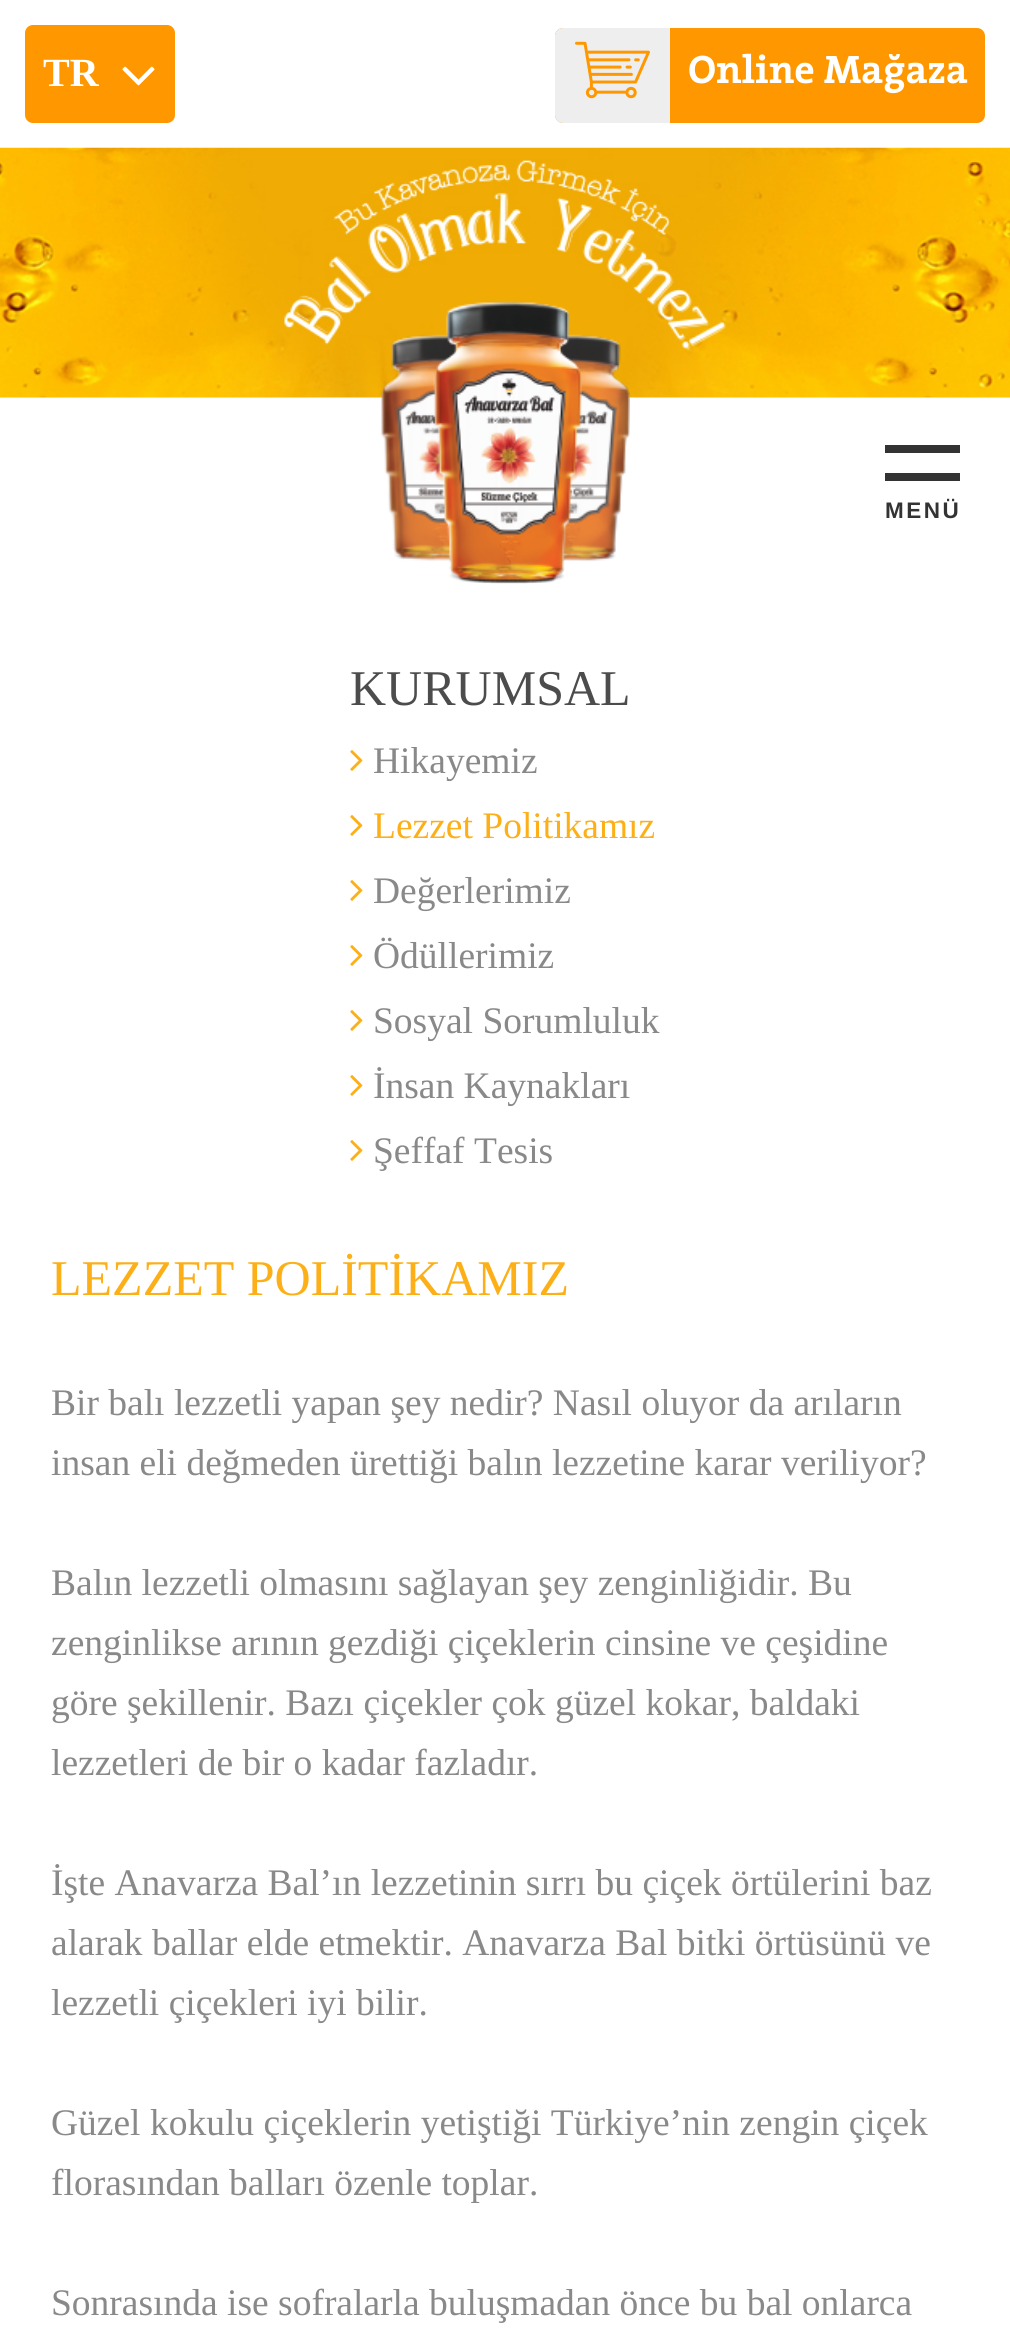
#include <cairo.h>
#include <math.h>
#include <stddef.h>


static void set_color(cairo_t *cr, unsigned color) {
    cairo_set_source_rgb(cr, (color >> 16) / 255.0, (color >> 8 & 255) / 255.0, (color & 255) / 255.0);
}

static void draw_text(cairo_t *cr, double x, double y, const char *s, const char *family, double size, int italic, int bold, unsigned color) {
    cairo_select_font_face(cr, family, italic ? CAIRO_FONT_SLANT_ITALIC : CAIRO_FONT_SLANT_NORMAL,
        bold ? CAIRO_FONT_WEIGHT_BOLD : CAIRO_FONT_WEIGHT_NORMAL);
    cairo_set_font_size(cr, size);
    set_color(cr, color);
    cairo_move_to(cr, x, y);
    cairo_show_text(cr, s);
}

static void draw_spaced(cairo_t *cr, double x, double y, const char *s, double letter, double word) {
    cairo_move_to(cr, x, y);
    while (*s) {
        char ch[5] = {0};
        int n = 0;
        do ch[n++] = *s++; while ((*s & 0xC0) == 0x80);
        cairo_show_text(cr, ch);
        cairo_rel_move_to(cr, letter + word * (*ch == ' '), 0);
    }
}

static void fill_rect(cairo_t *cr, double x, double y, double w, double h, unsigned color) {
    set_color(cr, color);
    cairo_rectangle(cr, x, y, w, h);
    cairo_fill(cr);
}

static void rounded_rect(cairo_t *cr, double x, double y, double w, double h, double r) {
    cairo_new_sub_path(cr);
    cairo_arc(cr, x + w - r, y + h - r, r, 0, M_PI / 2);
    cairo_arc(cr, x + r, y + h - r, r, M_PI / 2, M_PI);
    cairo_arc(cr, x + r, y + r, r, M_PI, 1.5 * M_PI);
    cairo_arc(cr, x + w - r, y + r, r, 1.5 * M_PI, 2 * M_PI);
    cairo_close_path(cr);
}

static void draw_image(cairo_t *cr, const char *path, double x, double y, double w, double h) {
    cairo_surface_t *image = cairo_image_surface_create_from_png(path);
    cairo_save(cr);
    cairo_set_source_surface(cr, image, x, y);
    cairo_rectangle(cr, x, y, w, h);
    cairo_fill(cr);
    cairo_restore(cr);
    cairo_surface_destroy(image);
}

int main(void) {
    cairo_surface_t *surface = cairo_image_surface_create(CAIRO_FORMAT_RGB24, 1010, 2340);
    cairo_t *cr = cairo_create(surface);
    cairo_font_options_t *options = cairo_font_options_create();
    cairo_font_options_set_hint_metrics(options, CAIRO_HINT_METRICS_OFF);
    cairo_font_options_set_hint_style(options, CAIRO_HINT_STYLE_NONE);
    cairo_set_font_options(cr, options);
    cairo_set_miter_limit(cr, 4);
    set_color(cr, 0xFFFFFF);
    cairo_paint(cr);
    set_color(cr, 0xFF9800);
    rounded_rect(cr, 25, 25, 150, 98, 8);
    cairo_fill(cr);
    draw_text(cr, 43, 86, "TR", "Liberation Serif", 40, 0, 1, 0xFFFFFF);
    draw_image(cr, "assets/img1.png", 122, 66, 33, 20);
    set_color(cr, 0xFF9800);
    rounded_rect(cr, 555, 28, 430, 95, 8);
    cairo_fill(cr);
    set_color(cr, 0xEEEEEE);
    cairo_new_path(cr);
    cairo_move_to(cr, 563, 28);
    cairo_line_to(cr, 670, 28);
    cairo_line_to(cr, 670, 123);
    cairo_line_to(cr, 563, 123);
    cairo_curve_to(cr, 558.5, 123, 555, 119.5, 555, 115);
    cairo_line_to(cr, 555, 36);
    cairo_curve_to(cr, 555, 31.5, 558.5, 28, 563, 28);
    cairo_close_path(cr);
    cairo_fill(cr);
    draw_image(cr, "assets/img2.png", 575, 41, 75, 58);
    draw_text(cr, 688, 83, "Online Mağaza", "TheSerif", 40, 0, 1, 0xFFFFFF);
    draw_image(cr, "assets/img3.png", 0, 147, 1010, 251);
    draw_image(cr, "assets/img4.png", 380, 302, 250, 282);
    fill_rect(cr, 885, 445, 75, 8, 0x333333);
    fill_rect(cr, 885, 473, 75, 8, 0x333333);
    cairo_select_font_face(cr, "Liberation Sans", CAIRO_FONT_SLANT_NORMAL, CAIRO_FONT_WEIGHT_BOLD);
    cairo_set_font_size(cr, 22.5);
    draw_spaced(cr, 885, 518, "MENÜ", 2.5, 0);
    draw_text(cr, 350, 705, "KURUMSAL", "Liberation Serif", 50, 0, 0, 0x4C4C4C);
    draw_image(cr, "assets/img5.png", 350, 750, 13, 21);
    draw_text(cr, 373, 773, "Hikayemiz", "Liberation Serif", 37.5, 0, 0, 0x898989);
    draw_image(cr, "assets/img5.png", 350, 815, 13, 21);
    draw_text(cr, 373, 838, "Lezzet Politikamız", "Liberation Serif", 37.5, 0, 0, 0xFCAF17);
    draw_image(cr, "assets/img5.png", 350, 880, 13, 21);
    draw_text(cr, 373, 903, "Değerlerimiz", "Liberation Serif", 37.5, 0, 0, 0x898989);
    draw_image(cr, "assets/img5.png", 350, 945, 13, 21);
    draw_text(cr, 373, 968, "Ödüllerimiz", "Liberation Serif", 37.5, 0, 0, 0x898989);
    draw_image(cr, "assets/img5.png", 350, 1010, 13, 21);
    draw_text(cr, 373, 1033, "Sosyal Sorumluluk", "Liberation Serif", 37.5, 0, 0, 0x898989);
    draw_image(cr, "assets/img5.png", 350, 1075, 13, 21);
    draw_text(cr, 373, 1098, "İnsan Kaynakları", "Liberation Serif", 37.5, 0, 0, 0x898989);
    draw_image(cr, "assets/img5.png", 350, 1140, 13, 21);
    draw_text(cr, 373, 1163, "Şeffaf Tesis", "Liberation Serif", 37.5, 0, 0, 0x898989);
    draw_text(cr, 51, 1295, "LEZZET POLİTİKAMIZ", "Liberation Serif", 50, 0, 0, 0xFCAF17);
    draw_text(cr, 51, 1415, "Bir balı lezzetli yapan şey nedir? Nasıl oluyor da arıların", "Liberation Serif", 37.5, 0, 0, 0x898989);
    draw_text(cr, 51, 1475, "insan eli değmeden ürettiği balın lezzetine karar veriliyor?", "Liberation Serif", 37.5, 0, 0, 0x898989);
    draw_text(cr, 51, 1595, "Balın lezzetli olmasını sağlayan şey zenginliğidir. Bu", "Liberation Serif", 37.5, 0, 0, 0x898989);
    draw_text(cr, 51, 1655, "zenginlikse arının gezdiği çiçeklerin cinsine ve çeşidine", "Liberation Serif", 37.5, 0, 0, 0x898989);
    draw_text(cr, 51, 1715, "göre şekillenir. Bazı çiçekler çok güzel kokar, baldaki", "Liberation Serif", 37.5, 0, 0, 0x898989);
    draw_text(cr, 51, 1775, "lezzetleri de bir o kadar fazladır.", "Liberation Serif", 37.5, 0, 0, 0x898989);
    draw_text(cr, 51, 1895, "İşte Anavarza Bal’ın lezzetinin sırrı bu çiçek örtülerini baz", "Liberation Serif", 37.5, 0, 0, 0x898989);
    draw_text(cr, 51, 1955, "alarak ballar elde etmektir. Anavarza Bal bitki örtüsünü ve", "Liberation Serif", 37.5, 0, 0, 0x898989);
    draw_text(cr, 51, 2015, "lezzetli çiçekleri iyi bilir.", "Liberation Serif", 37.5, 0, 0, 0x898989);
    draw_text(cr, 51, 2135, "Güzel kokulu çiçeklerin yetiştiği Türkiye’nin zengin çiçek", "Liberation Serif", 37.5, 0, 0, 0x898989);
    draw_text(cr, 51, 2195, "florasından balları özenle toplar.", "Liberation Serif", 37.5, 0, 0, 0x898989);
    draw_text(cr, 51, 2315, "Sonrasında ise sofralarla buluşmadan önce bu bal onlarca", "Liberation Serif", 37.5, 0, 0, 0x898989);
    cairo_surface_write_to_png(surface, "output.png");
    cairo_font_options_destroy(options);
    cairo_destroy(cr);
    cairo_surface_destroy(surface);
    return 0;
}
